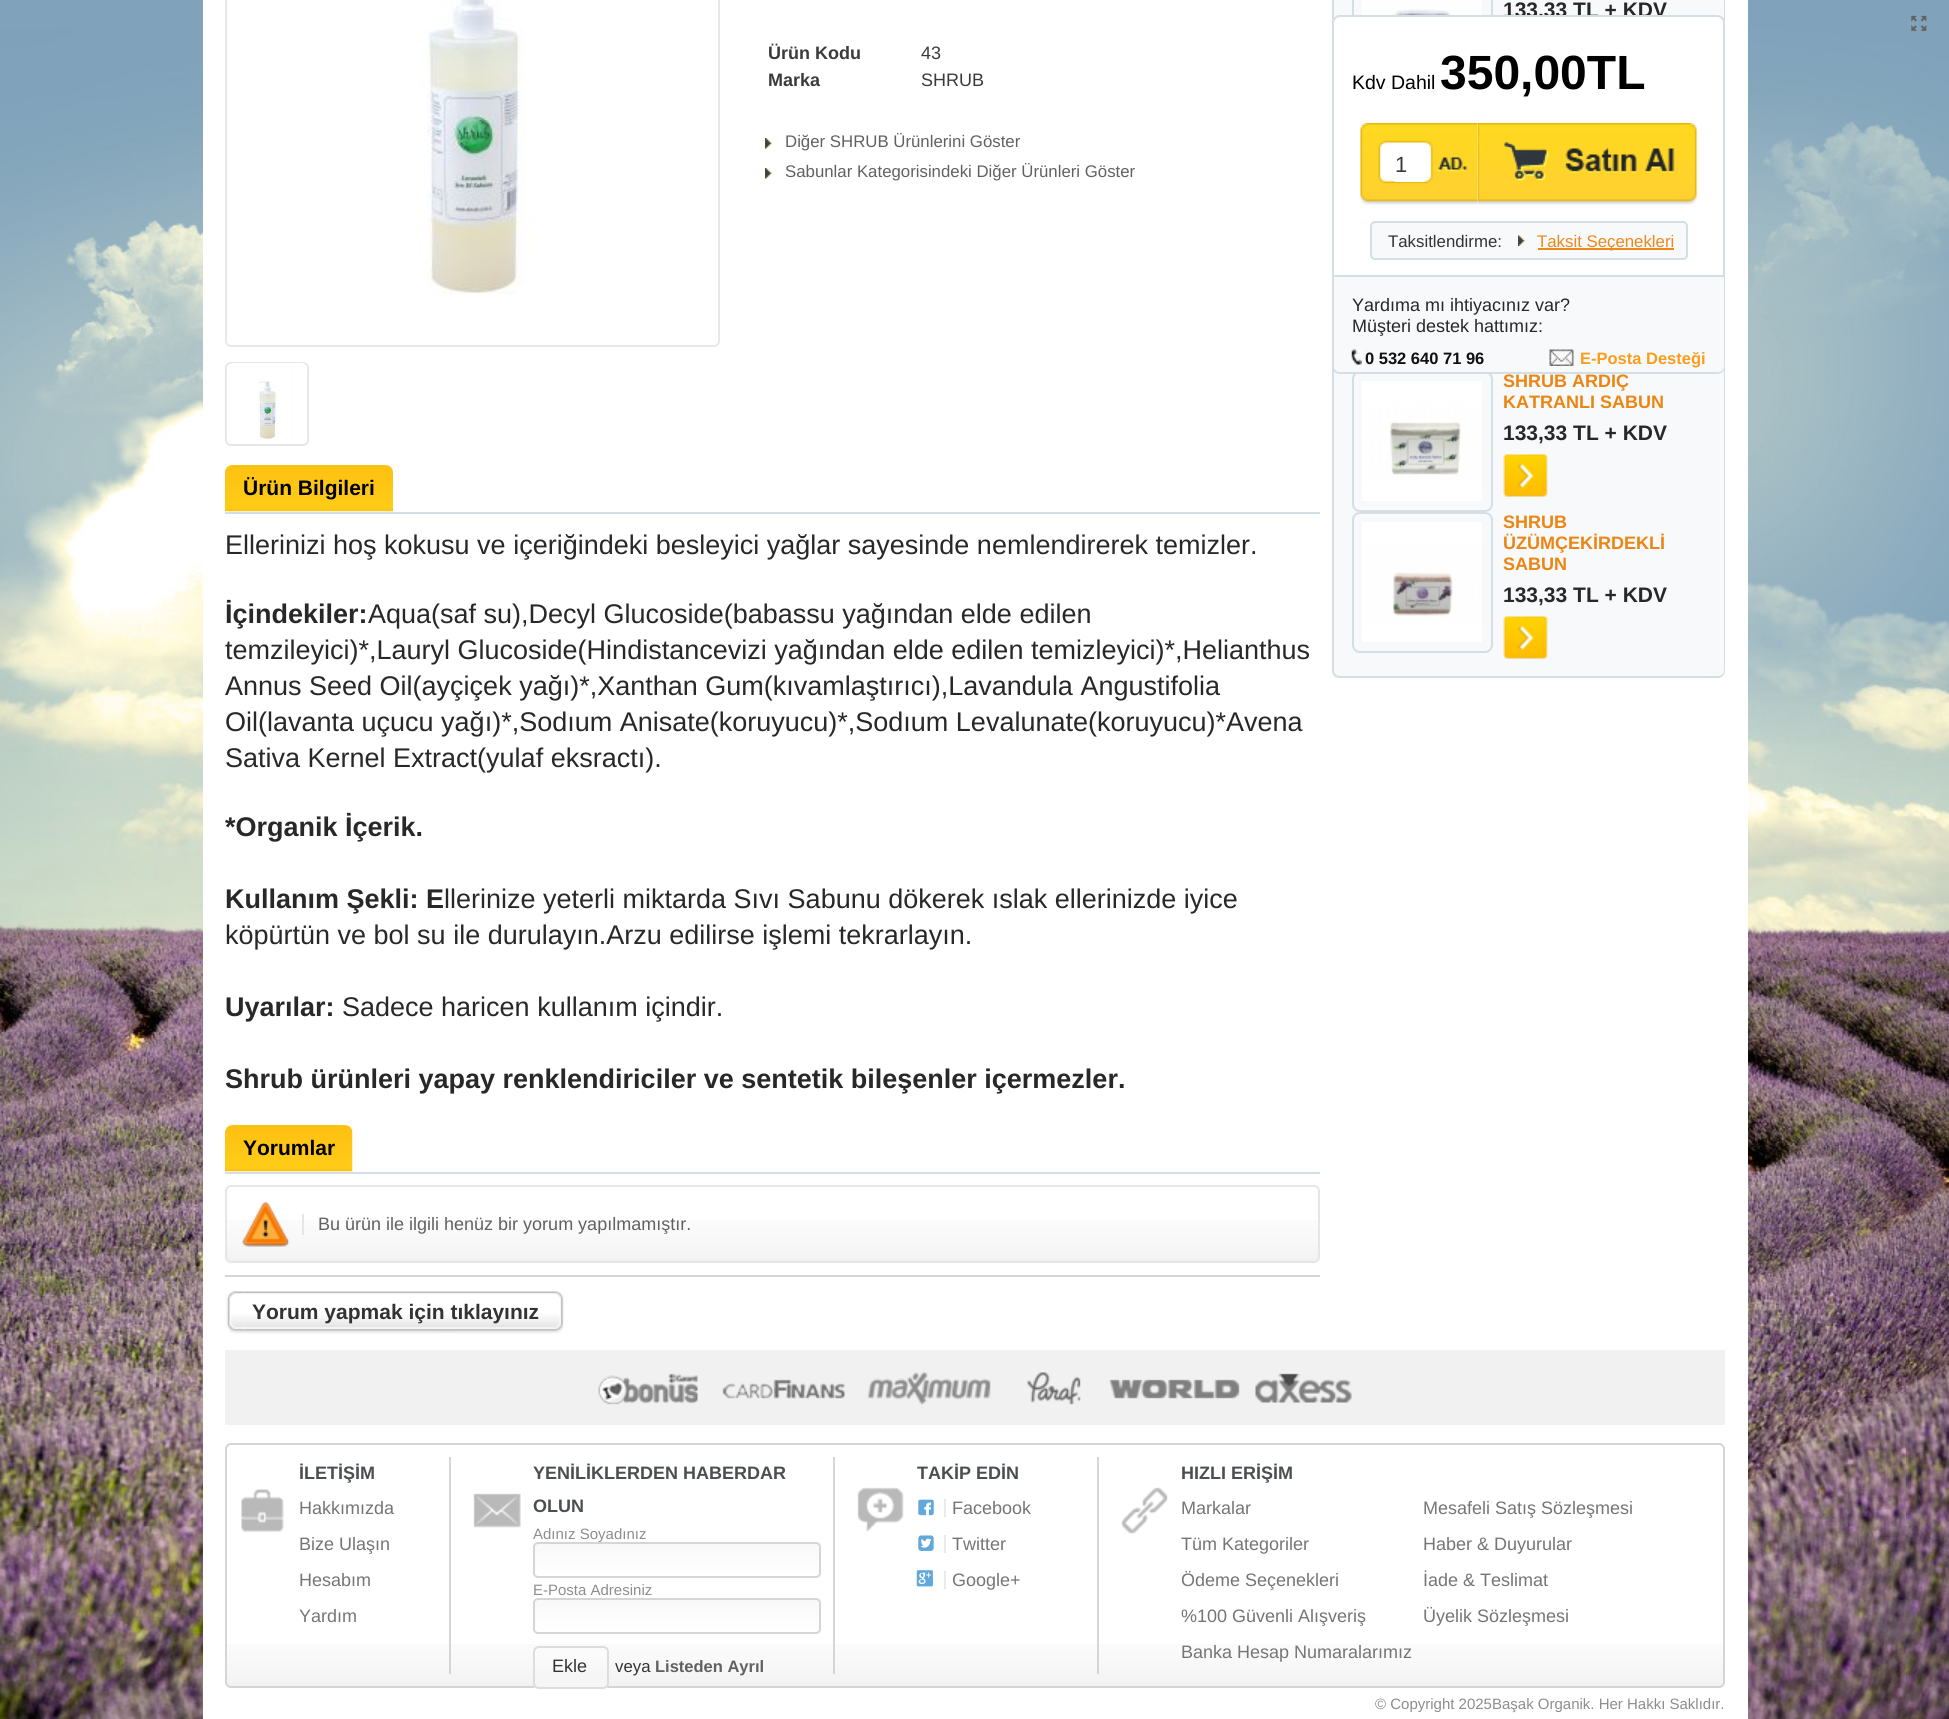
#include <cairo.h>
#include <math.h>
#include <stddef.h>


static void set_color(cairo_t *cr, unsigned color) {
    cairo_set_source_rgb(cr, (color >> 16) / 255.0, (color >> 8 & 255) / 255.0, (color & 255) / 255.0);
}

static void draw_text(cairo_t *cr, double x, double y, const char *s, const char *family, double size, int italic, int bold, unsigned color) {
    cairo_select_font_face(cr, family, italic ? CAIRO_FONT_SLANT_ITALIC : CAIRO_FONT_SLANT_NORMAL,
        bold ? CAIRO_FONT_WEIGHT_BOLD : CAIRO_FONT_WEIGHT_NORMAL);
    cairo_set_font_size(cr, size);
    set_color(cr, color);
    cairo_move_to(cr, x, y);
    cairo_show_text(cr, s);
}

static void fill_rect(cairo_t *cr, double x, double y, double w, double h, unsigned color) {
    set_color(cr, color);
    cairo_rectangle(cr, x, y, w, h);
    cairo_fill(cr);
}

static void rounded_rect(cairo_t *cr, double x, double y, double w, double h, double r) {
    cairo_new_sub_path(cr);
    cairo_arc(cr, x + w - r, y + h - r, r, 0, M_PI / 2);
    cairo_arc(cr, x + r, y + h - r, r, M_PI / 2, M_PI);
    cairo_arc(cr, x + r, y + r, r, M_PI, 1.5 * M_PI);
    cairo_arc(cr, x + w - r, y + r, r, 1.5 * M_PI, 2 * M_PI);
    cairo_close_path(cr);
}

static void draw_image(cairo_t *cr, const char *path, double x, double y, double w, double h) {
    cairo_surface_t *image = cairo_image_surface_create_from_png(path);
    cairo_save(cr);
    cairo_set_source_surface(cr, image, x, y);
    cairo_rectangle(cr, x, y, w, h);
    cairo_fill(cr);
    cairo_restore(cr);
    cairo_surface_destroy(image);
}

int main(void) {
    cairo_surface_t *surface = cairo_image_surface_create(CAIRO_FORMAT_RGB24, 1949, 1719);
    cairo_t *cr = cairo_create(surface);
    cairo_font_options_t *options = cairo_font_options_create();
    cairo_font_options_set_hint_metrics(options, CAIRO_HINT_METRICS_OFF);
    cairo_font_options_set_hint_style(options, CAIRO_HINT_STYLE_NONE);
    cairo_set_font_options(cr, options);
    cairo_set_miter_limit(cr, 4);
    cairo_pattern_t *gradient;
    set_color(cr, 0x80A2BB);
    cairo_paint(cr);
    draw_image(cr, "assets/img1.png", 0, 28, 1949, 1691);
    fill_rect(cr, 203, 0, 1545, 1719, 0xFFFFFF);
    rounded_rect(cr, 226, -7, 493, 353, 5);
    set_color(cr, 0xE8E8E8);
    cairo_stroke(cr);
    draw_image(cr, "assets/img2.png", 416, 0, 119, 296);
    rounded_rect(cr, 226, 363, 82, 82, 5);
    set_color(cr, 0xE6E6E6);
    cairo_stroke(cr);
    draw_image(cr, "assets/img3.png", 226, 363, 82, 78);
    draw_image(cr, "assets/img4.png", 770, 0, 15, 1);
    draw_image(cr, "assets/img5.png", 798, 0, 15, 1);
    draw_image(cr, "assets/img4.png", 827, 0, 15, 1);
    draw_image(cr, "assets/img5.png", 855, 0, 15, 1);
    draw_image(cr, "assets/img4.png", 884, 0, 15, 1);
    draw_text(cr, 768, 59, "Ürün Kodu", "Liberation Sans", 18, 0, 1, 0x3B3B3B);
    draw_text(cr, 921, 59, "43", "Liberation Sans", 18, 0, 0, 0x3B3B3B);
    draw_text(cr, 768, 86, "Marka", "Liberation Sans", 18, 0, 1, 0x3B3B3B);
    draw_text(cr, 921, 86, "SHRUB", "Liberation Sans", 18, 0, 0, 0x3B3B3B);
    draw_image(cr, "assets/img6.png", 765, 138, 8, 11);
    draw_text(cr, 785, 147, "Diğer SHRUB Ürünlerini Göster", "Liberation Sans", 16.8, 0, 0, 0x616161);
    draw_image(cr, "assets/img6.png", 765, 168, 8, 11);
    draw_text(cr, 785, 177, "Sabunlar Kategorisindeki Diğer Ürünleri Göster", "Liberation Sans", 16.8, 0, 0, 0x616161);
    fill_rect(cr, 225, 512, 1095, 2, 0xD4DEE5);
    draw_image(cr, "assets/img7.png", 225, 465, 168, 47);
    draw_text(cr, 243, 495, "Ürün Bilgileri", "Liberation Sans", 21, 0, 1, 0x000000);
    draw_text(cr, 225, 554, "Ellerinizi hoş kokusu ve içeriğindeki besleyici yağlar sayesinde nemlendirerek temizler.", "Liberation Sans", 27, 0, 0, 0x282828);
    draw_text(cr, 225, 623, "İçindekiler:", "Liberation Sans", 27, 0, 1, 0x282828);
    draw_text(cr, 368, 623, "Aqua(saf su),Decyl Glucoside(babassu yağından elde edilen", "Liberation Sans", 27, 0, 0, 0x282828);
    draw_text(cr, 225, 659, "temzileyici)*,Lauryl Glucoside(Hindistancevizi yağından elde edilen temizleyici)*,Helianthus", "Liberation Sans", 27, 0, 0, 0x282828);
    draw_text(cr, 225, 695, "Annus Seed Oil(ayçiçek yağı)*,Xanthan Gum(kıvamlaştırıcı),Lavandula Angustifolia", "Liberation Sans", 27, 0, 0, 0x282828);
    draw_text(cr, 225, 731, "Oil(lavanta uçucu yağı)*,Sodıum Anisate(koruyucu)*,Sodıum Levalunate(koruyucu)*Avena", "Liberation Sans", 27, 0, 0, 0x282828);
    draw_text(cr, 225, 767, "Sativa Kernel Extract(yulaf eksractı).", "Liberation Sans", 27, 0, 0, 0x282828);
    draw_text(cr, 225, 836, "*Organik İçerik.", "Liberation Sans", 27, 0, 1, 0x282828);
    draw_text(cr, 225, 908, "Kullanım Şekli: E", "Liberation Sans", 27, 0, 1, 0x282828);
    draw_text(cr, 444, 908, "llerinize yeterli miktarda Sıvı Sabunu dökerek ıslak ellerinizde iyice", "Liberation Sans", 27, 0, 0, 0x282828);
    draw_text(cr, 225, 944, "köpürtün ve bol su ile durulayın.Arzu edilirse işlemi tekrarlayın.", "Liberation Sans", 27, 0, 0, 0x282828);
    draw_text(cr, 225, 1016, "Uyarılar:", "Liberation Sans", 27, 0, 1, 0x282828);
    draw_text(cr, 342, 1016, "Sadece haricen kullanım içindir.", "Liberation Sans", 27, 0, 0, 0x282828);
    draw_text(cr, 225, 1088, "Shrub ürünleri yapay renklendiriciler ve sentetik bileşenler içermezler.", "Liberation Sans", 27, 0, 1, 0x282828);
    set_color(cr, 0xF7F9FA);
    cairo_new_path(cr);
    cairo_move_to(cr, 1332, -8);
    cairo_line_to(cr, 1725, -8);
    cairo_line_to(cr, 1725, 670);
    cairo_curve_to(cr, 1725, 674.5, 1721.5, 678, 1717, 678);
    cairo_line_to(cr, 1340, 678);
    cairo_curve_to(cr, 1335.5, 678, 1332, 674.5, 1332, 670);
    cairo_close_path(cr);
    cairo_fill(cr);
    set_color(cr, 0xD4DEE5);
    cairo_set_fill_rule(cr, CAIRO_FILL_RULE_EVEN_ODD);
    cairo_new_path(cr);
    cairo_move_to(cr, 1332, -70);
    cairo_line_to(cr, 1725, -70);
    cairo_line_to(cr, 1725, 670);
    cairo_curve_to(cr, 1725, 675, 1722, 678, 1718, 678);
    cairo_line_to(cr, 1340, 678);
    cairo_curve_to(cr, 1335, 678, 1332, 675, 1332, 670);
    cairo_close_path(cr);
    cairo_move_to(cr, 1334, -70);
    cairo_line_to(cr, 1724, -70);
    cairo_line_to(cr, 1724, 670);
    cairo_curve_to(cr, 1724, 674, 1721, 676, 1718, 676);
    cairo_line_to(cr, 1340, 676);
    cairo_curve_to(cr, 1336, 676, 1334, 674, 1334, 670);
    cairo_close_path(cr);
    cairo_fill(cr);
    cairo_rectangle(cr, 1353, -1, 139, 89);
    cairo_stroke(cr);
    draw_image(cr, "assets/img8.png", 1362, 0, 120, 15);
    draw_text(cr, 1503, 17, "133,33 TL + KDV", "Liberation Sans", 21, 0, 1, 0x282828);
    rounded_rect(cr, 1353, 372, 139, 139, 7);
    set_color(cr, 0xD4DEE5);
    cairo_stroke(cr);
    draw_image(cr, "assets/img9.png", 1362, 381, 120, 120);
    draw_text(cr, 1503, 387, "SHRUB ARDIÇ", "Liberation Sans", 18, 0, 1, 0xED8512);
    draw_text(cr, 1503, 408, "KATRANLI SABUN", "Liberation Sans", 18, 0, 1, 0xED8512);
    draw_text(cr, 1503, 440, "133,33 TL + KDV", "Liberation Sans", 21, 0, 1, 0x282828);
    draw_image(cr, "assets/img10.png", 1503, 454, 45, 43);
    rounded_rect(cr, 1353, 513, 139, 139, 7);
    set_color(cr, 0xD4DEE5);
    cairo_stroke(cr);
    draw_image(cr, "assets/img11.png", 1362, 522, 120, 120);
    draw_text(cr, 1503, 528, "SHRUB", "Liberation Sans", 18, 0, 1, 0xED8512);
    draw_text(cr, 1503, 549, "ÜZÜMÇEKİRDEKLİ", "Liberation Sans", 18, 0, 1, 0xED8512);
    draw_text(cr, 1503, 570, "SABUN", "Liberation Sans", 18, 0, 1, 0xED8512);
    draw_text(cr, 1503, 602, "133,33 TL + KDV", "Liberation Sans", 21, 0, 1, 0x282828);
    draw_image(cr, "assets/img10.png", 1503, 616, 45, 43);
    set_color(cr, 0xFFFFFF);
    rounded_rect(cr, 1333, 16, 391, 357, 7);
    cairo_fill_preserve(cr);
    set_color(cr, 0xD4DEE5);
    cairo_stroke(cr);
    draw_text(cr, 1352, 89, "Kdv Dahil", "Liberation Sans", 19.5, 0, 0, 0x000000);
    draw_text(cr, 1440, 89, "350,00TL", "Liberation Sans", 48, 0, 1, 0x000000);
    draw_image(cr, "assets/img12.png", 1360, 123, 118, 82);
    fill_rect(cr, 1395, 180, 30, 2, 0xFFFFFF);
    draw_text(cr, 1395, 172, "1", "Liberation Sans", 22, 0, 0, 0x3B3B3B);
    draw_image(cr, "assets/img13.png", 1477, 123, 221, 82);
    set_color(cr, 0xF7F9FA);
    rounded_rect(cr, 1371, 222, 316, 37, 4);
    cairo_fill_preserve(cr);
    set_color(cr, 0xD4DEE5);
    cairo_stroke(cr);
    draw_text(cr, 1388, 247, "Taksitlendirme:", "Liberation Sans", 16.8, 0, 0, 0x333333);
    draw_image(cr, "assets/img14.png", 1518, 235, 8, 11);
    fill_rect(cr, 1538, 248, 136, 2, 0xEE881B);
    draw_text(cr, 1537, 247, "Taksit Seçenekleri", "Liberation Sans", 16.8, 0, 0, 0xEE881B);
    set_color(cr, 0xF7F9FA);
    cairo_new_path(cr);
    cairo_move_to(cr, 1334, 275);
    cairo_line_to(cr, 1724, 275);
    cairo_line_to(cr, 1724, 366);
    cairo_curve_to(cr, 1724, 369.5, 1721.5, 372, 1718, 372);
    cairo_line_to(cr, 1340, 372);
    cairo_curve_to(cr, 1336.5, 372, 1334, 369.5, 1334, 366);
    cairo_close_path(cr);
    cairo_fill(cr);
    fill_rect(cr, 1334, 275, 390, 2, 0xD4DEE5);
    draw_text(cr, 1352, 311, "Yardıma mı ihtiyacınız var?", "Liberation Sans", 18, 0, 0, 0x282828);
    draw_text(cr, 1352, 332, "Müşteri destek hattımız:", "Liberation Sans", 18, 0, 0, 0x282828);
    draw_image(cr, "assets/img15.png", 1351, 349, 11, 16);
    draw_text(cr, 1365, 364, "0 532 640 71 96", "Liberation Sans", 16.5, 0, 1, 0x101010);
    draw_image(cr, "assets/img16.png", 1549, 349, 25, 17);
    draw_text(cr, 1580, 364, "E-Posta Desteği", "Liberation Sans", 16.5, 0, 1, 0xF99D1C);
    fill_rect(cr, 225, 1172, 1095, 2, 0xD4DEE5);
    draw_image(cr, "assets/img17.png", 225, 1125, 128, 47);
    draw_text(cr, 243, 1155, "Yorumlar", "Liberation Sans", 21, 0, 1, 0x000000);
    draw_image(cr, "assets/img18.png", 225, 1220, 1095, 42);
    rounded_rect(cr, 226, 1186, 1093, 76, 5);
    set_color(cr, 0xE6E6E6);
    cairo_stroke(cr);
    draw_image(cr, "assets/img19.png", 242, 1201, 48, 46);
    fill_rect(cr, 302, 1214, 2, 21, 0xE6E6E6);
    draw_text(cr, 318, 1230, "Bu ürün ile ilgili henüz bir yorum yapılmamıştır.", "Liberation Sans", 18, 0, 0, 0x616161);
    fill_rect(cr, 225, 1275, 1095, 2, 0xD5D5D5);
    draw_image(cr, "assets/img20.png", 226, 1291, 19, 43);
    draw_image(cr, "assets/img21.png", 244, 1291, 320, 43);
    draw_text(cr, 252, 1319, "Yorum yapmak için tıklayınız", "Liberation Sans", 21, 0, 1, 0x333333);
    draw_image(cr, "assets/img22.png", 1911, 15, 16, 16);
    fill_rect(cr, 225, 1350, 1500, 75, 0xF1F1F1);
    draw_image(cr, "assets/img23.png", 598, 1372, 754, 33);
    draw_image(cr, "assets/img24.png", 225, 1644, 1500, 42);
    rounded_rect(cr, 226, 1444, 1498, 243, 5);
    set_color(cr, 0xD5D5D5);
    cairo_stroke(cr);
    draw_image(cr, "assets/img25.png", 241, 1489, 43, 43);
    fill_rect(cr, 449, 1457, 2, 217, 0xD5D5D5);
    draw_text(cr, 299, 1479, "İLETİŞİM", "Liberation Sans", 18, 0, 1, 0x4B4F52);
    draw_text(cr, 299, 1514, "Hakkımızda", "Liberation Sans", 18, 0, 0, 0x757575);
    draw_text(cr, 299, 1550, "Bize Ulaşın", "Liberation Sans", 18, 0, 0, 0x757575);
    draw_text(cr, 299, 1586, "Hesabım", "Liberation Sans", 18, 0, 0, 0x757575);
    draw_text(cr, 299, 1622, "Yardım", "Liberation Sans", 18, 0, 0, 0x757575);
    draw_image(cr, "assets/img26.png", 473, 1493, 48, 35);
    fill_rect(cr, 833, 1457, 2, 217, 0xD5D5D5);
    draw_text(cr, 533, 1479, "YENİLİKLERDEN HABERDAR", "Liberation Sans", 18, 0, 1, 0x4B4F52);
    draw_text(cr, 533, 1512, "OLUN", "Liberation Sans", 18, 0, 1, 0x4B4F52);
    draw_text(cr, 533, 1539, "Adınız Soyadınız", "Liberation Sans", 15, 0, 0, 0x8D8D8D);
    cairo_save(cr);
    cairo_set_fill_rule(cr, CAIRO_FILL_RULE_WINDING);
    rounded_rect(cr, 533, 1542, 288, 36, 5);
    cairo_clip(cr);
    gradient = cairo_pattern_create_linear(534, 1544, 534, 1577);
    cairo_pattern_add_color_stop_rgba(gradient, 0, 0.973, 0.973, 0.973, 1);
    cairo_pattern_add_color_stop_rgba(gradient, 1, 1, 1, 1, 1);
    cairo_set_source(cr, gradient);
    cairo_pattern_destroy(gradient);
    cairo_rectangle(cr, 533, 1544, 288, 33);
    cairo_fill(cr);
    cairo_restore(cr);
    rounded_rect(cr, 534, 1543, 286, 34, 4);
    set_color(cr, 0xD5D5D5);
    cairo_stroke(cr);
    draw_text(cr, 533, 1595, "E-Posta Adresiniz", "Liberation Sans", 15, 0, 0, 0x8D8D8D);
    cairo_save(cr);
    cairo_set_fill_rule(cr, CAIRO_FILL_RULE_WINDING);
    rounded_rect(cr, 533, 1598, 288, 36, 5);
    cairo_clip(cr);
    gradient = cairo_pattern_create_linear(534, 1599, 534, 1632);
    cairo_pattern_add_color_stop_rgba(gradient, 0, 0.973, 0.973, 0.973, 1);
    cairo_pattern_add_color_stop_rgba(gradient, 1, 1, 1, 1, 1);
    cairo_set_source(cr, gradient);
    cairo_pattern_destroy(gradient);
    cairo_rectangle(cr, 533, 1599, 288, 33);
    cairo_fill(cr);
    cairo_restore(cr);
    rounded_rect(cr, 534, 1599, 286, 34, 4);
    set_color(cr, 0xD5D5D5);
    cairo_stroke(cr);
    draw_image(cr, "assets/img27.png", 533, 1646, 76, 42);
    rounded_rect(cr, 534, 1647, 74, 41, 5);
    set_color(cr, 0xDDDDDD);
    cairo_stroke(cr);
    draw_text(cr, 552, 1672, "Ekle", "Liberation Sans", 18, 0, 0, 0x333333);
    draw_text(cr, 615, 1672, "veya", "Liberation Sans", 16.8, 0, 0, 0x333333);
    draw_text(cr, 655, 1672, "Listeden Ayrıl", "Liberation Sans", 16.5, 0, 1, 0x616161);
    draw_image(cr, "assets/img28.png", 857, 1487, 47, 45);
    fill_rect(cr, 1097, 1457, 2, 217, 0xD5D5D5);
    draw_text(cr, 917, 1479, "TAKİP EDİN", "Liberation Sans", 18, 0, 1, 0x4B4F52);
    fill_rect(cr, 944, 1499, 2, 18, 0xE9E9E9);
    draw_image(cr, "assets/img29.png", 918, 1499, 16, 17);
    draw_text(cr, 952, 1514, "Facebook", "Liberation Sans", 18, 0, 0, 0x757575);
    fill_rect(cr, 944, 1535, 2, 18, 0xE9E9E9);
    draw_image(cr, "assets/img30.png", 918, 1535, 16, 16);
    draw_text(cr, 952, 1550, "Twitter", "Liberation Sans", 18, 0, 0, 0x757575);
    fill_rect(cr, 944, 1571, 2, 18, 0xE9E9E9);
    draw_image(cr, "assets/img31.png", 916, 1570, 17, 17);
    draw_text(cr, 952, 1586, "Google+", "Liberation Sans", 18, 0, 0, 0x757575);
    draw_image(cr, "assets/img32.png", 1121, 1487, 47, 47);
    draw_text(cr, 1181, 1479, "HIZLI ERİŞİM", "Liberation Sans", 18, 0, 1, 0x4B4F52);
    draw_text(cr, 1181, 1514, "Markalar", "Liberation Sans", 18, 0, 0, 0x757575);
    draw_text(cr, 1423, 1514, "Mesafeli Satış Sözleşmesi", "Liberation Sans", 18, 0, 0, 0x757575);
    draw_text(cr, 1181, 1550, "Tüm Kategoriler", "Liberation Sans", 18, 0, 0, 0x757575);
    draw_text(cr, 1423, 1550, "Haber & Duyurular", "Liberation Sans", 18, 0, 0, 0x757575);
    draw_text(cr, 1181, 1586, "Ödeme Seçenekleri", "Liberation Sans", 18, 0, 0, 0x757575);
    draw_text(cr, 1423, 1586, "İade & Teslimat", "Liberation Sans", 18, 0, 0, 0x757575);
    draw_text(cr, 1181, 1622, "%100 Güvenli Alışveriş", "Liberation Sans", 18, 0, 0, 0x757575);
    draw_text(cr, 1423, 1622, "Üyelik Sözleşmesi", "Liberation Sans", 18, 0, 0, 0x757575);
    draw_text(cr, 1181, 1658, "Banka Hesap Numaralarımız", "Liberation Sans", 18, 0, 0, 0x757575);
    draw_text(cr, 1375, 1709, "© Copyright 2025Başak Organik. Her Hakkı Saklıdır.", "Liberation Sans", 15, 0, 0, 0x8D8D8D);
    cairo_set_source_rgba(cr, 0.38, 0.38, 0.38, 0.3);
    cairo_set_fill_rule(cr, CAIRO_FILL_RULE_WINDING);
    cairo_new_path(cr);
    cairo_move_to(cr, 1917, 1620);
    cairo_curve_to(cr, 1917, 1649, 1874, 1649, 1874, 1620);
    cairo_curve_to(cr, 1874, 1592, 1917, 1592, 1917, 1620);
    cairo_close_path(cr);
    cairo_move_to(cr, 1903, 1625);
    cairo_line_to(cr, 1906, 1622);
    cairo_line_to(cr, 1896, 1612);
    cairo_line_to(cr, 1886, 1622);
    cairo_line_to(cr, 1889, 1625);
    cairo_line_to(cr, 1896, 1618);
    cairo_close_path(cr);
    cairo_fill(cr);
    cairo_surface_write_to_png(surface, "output.png");
    cairo_font_options_destroy(options);
    cairo_destroy(cr);
    cairo_surface_destroy(surface);
    return 0;
}
